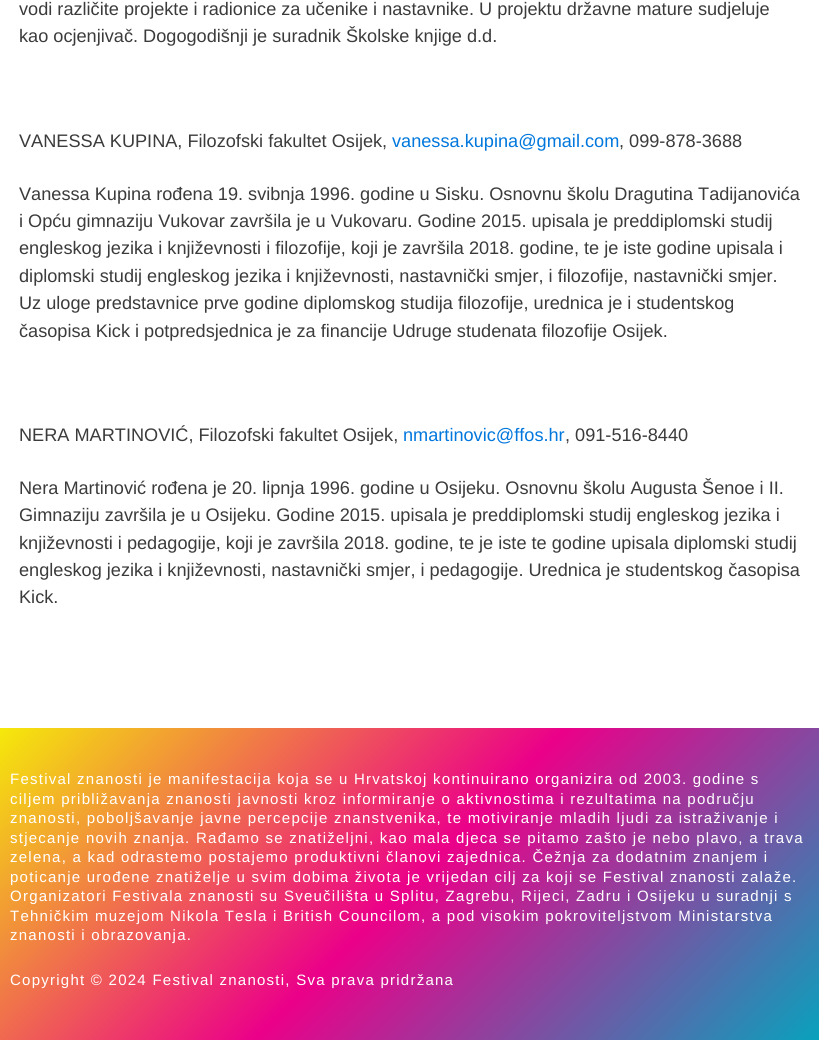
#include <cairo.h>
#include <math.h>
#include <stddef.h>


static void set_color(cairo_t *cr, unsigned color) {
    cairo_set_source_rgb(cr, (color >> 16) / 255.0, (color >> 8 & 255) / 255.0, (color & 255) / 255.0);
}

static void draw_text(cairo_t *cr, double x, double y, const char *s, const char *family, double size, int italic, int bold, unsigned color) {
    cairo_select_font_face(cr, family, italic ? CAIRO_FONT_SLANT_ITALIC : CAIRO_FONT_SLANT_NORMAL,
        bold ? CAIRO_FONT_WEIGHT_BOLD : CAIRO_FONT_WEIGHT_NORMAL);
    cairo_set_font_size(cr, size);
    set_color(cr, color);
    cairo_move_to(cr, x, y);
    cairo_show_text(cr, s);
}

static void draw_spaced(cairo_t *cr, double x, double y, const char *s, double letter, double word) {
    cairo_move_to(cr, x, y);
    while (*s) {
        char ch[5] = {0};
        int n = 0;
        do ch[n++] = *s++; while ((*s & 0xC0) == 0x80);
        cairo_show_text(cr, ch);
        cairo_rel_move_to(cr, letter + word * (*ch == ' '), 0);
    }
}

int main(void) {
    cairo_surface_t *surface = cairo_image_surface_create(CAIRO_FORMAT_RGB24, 819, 1040);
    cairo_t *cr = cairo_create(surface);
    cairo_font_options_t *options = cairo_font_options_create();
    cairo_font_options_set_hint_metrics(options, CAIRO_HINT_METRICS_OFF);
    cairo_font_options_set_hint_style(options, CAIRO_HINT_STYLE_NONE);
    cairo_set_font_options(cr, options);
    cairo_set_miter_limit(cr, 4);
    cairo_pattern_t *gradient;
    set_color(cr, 0xFFFFFF);
    cairo_paint(cr);
    draw_text(cr, 19, 15, "vodi različite projekte i radionice za učenike i nastavnike. U projektu državne mature sudjeluje", "Liberation Sans", 18.15, 0, 0, 0x3B3B3B);
    draw_text(cr, 19, 42, "kao ocjenjivač. Dogogodišnji je suradnik Školske knjige d.d.", "Liberation Sans", 18.15, 0, 0, 0x3B3B3B);
    draw_text(cr, 19, 147, "VANESSA KUPINA, Filozofski fakultet Osijek,", "Liberation Sans", 18.15, 0, 0, 0x3B3B3B);
    draw_text(cr, 392, 147, "vanessa.kupina@gmail.com", "Liberation Sans", 18.15, 0, 0, 0x0077DD);
    draw_text(cr, 619, 147, ", 099-878-3688", "Liberation Sans", 18.15, 0, 0, 0x3B3B3B);
    draw_text(cr, 19, 200, "Vanessa Kupina rođena 19. svibnja 1996. godine u Sisku. Osnovnu školu Dragutina Tadijanovića", "Liberation Sans", 18.15, 0, 0, 0x3B3B3B);
    draw_text(cr, 19, 227, "i Opću gimnaziju Vukovar završila je u Vukovaru. Godine 2015. upisala je preddiplomski studij", "Liberation Sans", 18.15, 0, 0, 0x3B3B3B);
    draw_text(cr, 19, 254, "engleskog jezika i književnosti i filozofije, koji je završila 2018. godine, te je iste godine upisala i", "Liberation Sans", 18.15, 0, 0, 0x3B3B3B);
    draw_text(cr, 19, 282, "diplomski studij engleskog jezika i književnosti, nastavnički smjer, i filozofije, nastavnički smjer.", "Liberation Sans", 18.15, 0, 0, 0x3B3B3B);
    draw_text(cr, 19, 309, "Uz uloge predstavnice prve godine diplomskog studija filozofije, urednica je i studentskog", "Liberation Sans", 18.15, 0, 0, 0x3B3B3B);
    draw_text(cr, 19, 337, "časopisa Kick i potpredsjednica je za financije Udruge studenata filozofije Osijek.", "Liberation Sans", 18.15, 0, 0, 0x3B3B3B);
    draw_text(cr, 19, 441, "NERA MARTINOVIĆ, Filozofski fakultet Osijek,", "Liberation Sans", 18.15, 0, 0, 0x3B3B3B);
    draw_text(cr, 403, 441, "nmartinovic@ffos.hr", "Liberation Sans", 18.15, 0, 0, 0x0077DD);
    draw_text(cr, 565, 441, ", 091-516-8440", "Liberation Sans", 18.15, 0, 0, 0x3B3B3B);
    draw_text(cr, 19, 494, "Nera Martinović rođena je 20. lipnja 1996. godine u Osijeku. Osnovnu školu Augusta Šenoe i II.", "Liberation Sans", 18.15, 0, 0, 0x3B3B3B);
    draw_text(cr, 19, 521, "Gimnaziju završila je u Osijeku. Godine 2015. upisala je preddiplomski studij engleskog jezika i", "Liberation Sans", 18.15, 0, 0, 0x3B3B3B);
    draw_text(cr, 19, 549, "književnosti i pedagogije, koji je završila 2018. godine, te je iste te godine upisala diplomski studij", "Liberation Sans", 18.15, 0, 0, 0x3B3B3B);
    draw_text(cr, 19, 576, "engleskog jezika i književnosti, nastavnički smjer, i pedagogije. Urednica je studentskog časopisa", "Liberation Sans", 18.15, 0, 0, 0x3B3B3B);
    draw_text(cr, 19, 603, "Kick.", "Liberation Sans", 18.15, 0, 0, 0x3B3B3B);
    gradient = cairo_pattern_create_linear(127, 601, 693, 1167);
    cairo_pattern_add_color_stop_rgba(gradient, 0, 0.961, 0.914, 0.039, 1);
    cairo_pattern_add_color_stop_rgba(gradient, 0.5, 0.922, 0, 0.537, 1);
    cairo_pattern_add_color_stop_rgba(gradient, 1, 0.031, 0.635, 0.741, 1);
    cairo_set_source(cr, gradient);
    cairo_pattern_destroy(gradient);
    cairo_rectangle(cr, 0, 728, 819, 312);
    cairo_fill(cr);
    cairo_set_font_size(cr, 15);
    set_color(cr, 0xFFFFFF);
    draw_spaced(cr, 10, 784, "Festival znanosti je manifestacija koja se u Hrvatskoj kontinuirano organizira od 2003. godine s", 1.25, 0);
    draw_spaced(cr, 10, 804, "ciljem približavanja znanosti javnosti kroz informiranje o aktivnostima i rezultatima na području", 1.25, 0);
    draw_spaced(cr, 10, 823, "znanosti, poboljšavanje javne percepcije znanstvenika, te motiviranje mladih ljudi za istraživanje i", 1.25, 0);
    draw_spaced(cr, 10, 843, "stjecanje novih znanja. Rađamo se znatiželjni, kao mala djeca se pitamo zašto je nebo plavo, a trava", 1.25, 0);
    draw_spaced(cr, 10, 862, "zelena, a kad odrastemo postajemo produktivni članovi zajednica. Čežnja za dodatnim znanjem i", 1.25, 0);
    draw_spaced(cr, 10, 882, "poticanje urođene znatiželje u svim dobima života je vrijedan cilj za koji se Festival znanosti zalaže.", 1.25, 0);
    draw_spaced(cr, 10, 901, "Organizatori Festivala znanosti su Sveučilišta u Splitu, Zagrebu, Rijeci, Zadru i Osijeku u suradnji s", 1.25, 0);
    draw_spaced(cr, 10, 921, "Tehničkim muzejom Nikola Tesla i British Councilom, a pod visokim pokroviteljstvom Ministarstva", 1.25, 0);
    draw_spaced(cr, 10, 940, "znanosti i obrazovanja.", 1.25, 0);
    draw_spaced(cr, 10, 985, "Copyright © 2024 Festival znanosti, Sva prava pridržana", 1.25, 0);
    cairo_surface_write_to_png(surface, "output.png");
    cairo_font_options_destroy(options);
    cairo_destroy(cr);
    cairo_surface_destroy(surface);
    return 0;
}
